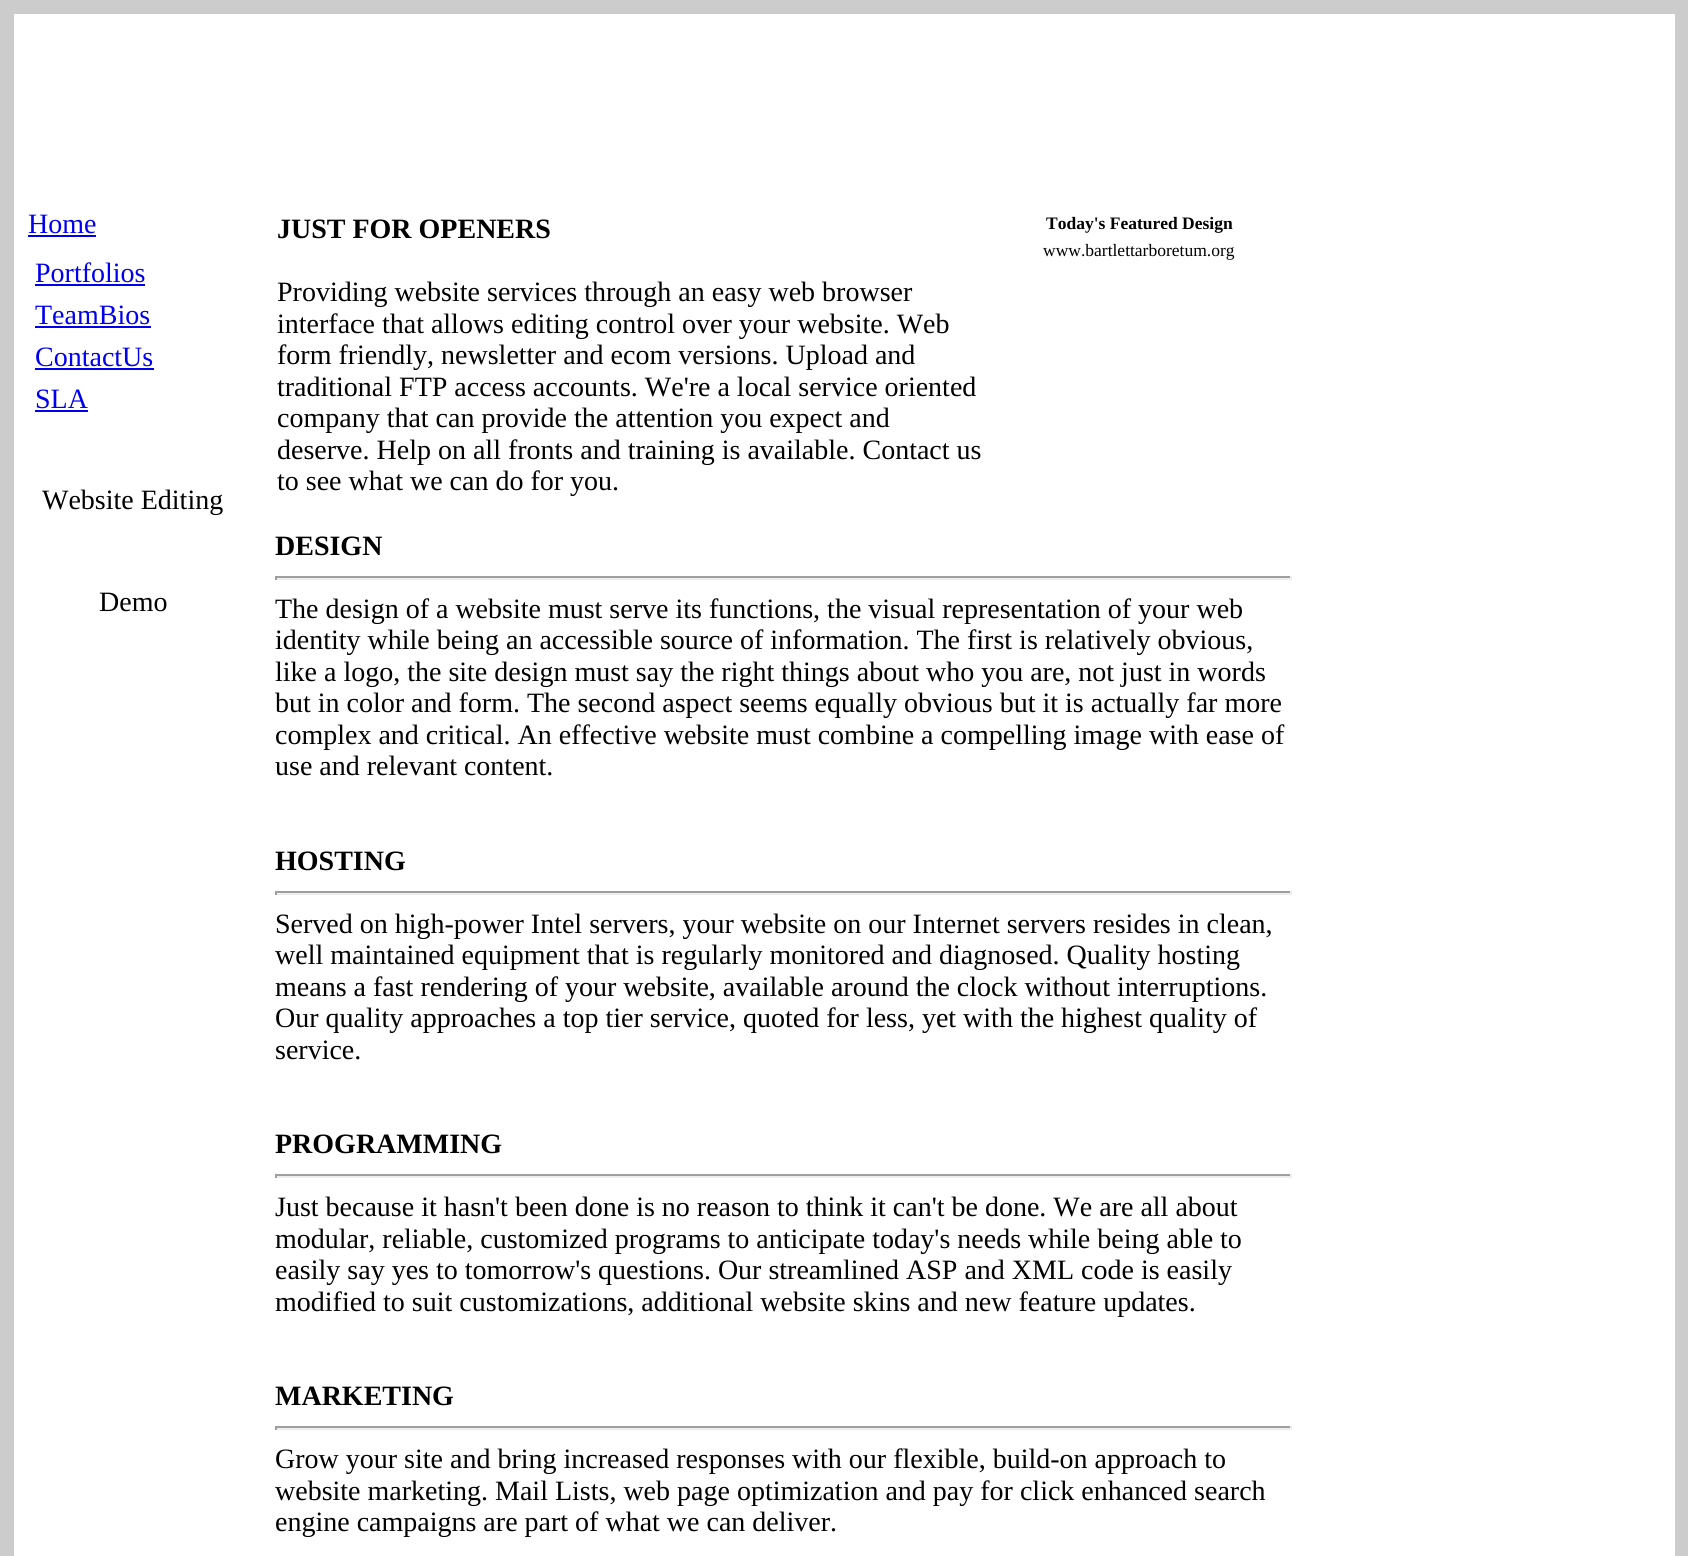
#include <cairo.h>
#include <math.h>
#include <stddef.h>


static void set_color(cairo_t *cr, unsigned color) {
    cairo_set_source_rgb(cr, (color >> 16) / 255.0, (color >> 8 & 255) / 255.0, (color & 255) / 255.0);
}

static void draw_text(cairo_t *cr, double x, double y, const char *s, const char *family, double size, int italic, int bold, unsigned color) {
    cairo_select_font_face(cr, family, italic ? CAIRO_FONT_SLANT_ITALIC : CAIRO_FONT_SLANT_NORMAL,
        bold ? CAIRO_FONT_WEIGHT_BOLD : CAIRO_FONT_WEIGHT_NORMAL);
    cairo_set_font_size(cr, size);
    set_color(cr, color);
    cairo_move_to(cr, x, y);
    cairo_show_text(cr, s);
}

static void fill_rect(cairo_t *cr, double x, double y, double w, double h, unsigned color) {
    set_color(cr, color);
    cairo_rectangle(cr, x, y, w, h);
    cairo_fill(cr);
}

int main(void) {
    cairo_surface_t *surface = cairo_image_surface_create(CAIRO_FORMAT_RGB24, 1688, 1556);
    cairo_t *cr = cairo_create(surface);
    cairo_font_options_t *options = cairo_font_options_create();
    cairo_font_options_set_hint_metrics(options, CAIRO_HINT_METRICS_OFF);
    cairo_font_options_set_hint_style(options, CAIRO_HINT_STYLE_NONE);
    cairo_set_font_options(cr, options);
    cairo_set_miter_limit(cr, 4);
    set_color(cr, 0xCCCCCC);
    cairo_paint(cr);
    fill_rect(cr, 14, 14, 1661, 1542, 0xFFFFFF);
    draw_text(cr, 28, 233, "Home", "Liberation Serif", 28, 0, 0, 0x0000EE);
    fill_rect(cr, 28, 235, 68, 2, 0x0000EE);
    draw_text(cr, 35, 282, "Portfolios", "Liberation Serif", 28, 0, 0, 0x0000EE);
    fill_rect(cr, 35, 284, 110, 2, 0x0000EE);
    draw_text(cr, 35, 324, "TeamBios", "Liberation Serif", 28, 0, 0, 0x0000EE);
    fill_rect(cr, 35, 326, 116, 2, 0x0000EE);
    draw_text(cr, 35, 366, "ContactUs", "Liberation Serif", 28, 0, 0, 0x0000EE);
    fill_rect(cr, 35, 368, 119, 2, 0x0000EE);
    draw_text(cr, 35, 408, "SLA", "Liberation Serif", 28, 0, 0, 0x0000EE);
    fill_rect(cr, 35, 410, 53, 2, 0x0000EE);
    draw_text(cr, 42, 509, "Website Editing", "Liberation Serif", 28, 0, 0, 0x000000);
    draw_text(cr, 99, 611, "Demo", "Liberation Serif", 28, 0, 0, 0x000000);
    draw_text(cr, 277, 238, "JUST FOR OPENERS", "Liberation Serif", 28, 0, 1, 0x000000);
    draw_text(cr, 277, 301, "Providing website services through an easy web browser", "Liberation Serif", 28, 0, 0, 0x000000);
    draw_text(cr, 277, 333, "interface that allows editing control over your website. Web", "Liberation Serif", 28, 0, 0, 0x000000);
    draw_text(cr, 277, 364, "form friendly, newsletter and ecom versions. Upload and", "Liberation Serif", 28, 0, 0, 0x000000);
    draw_text(cr, 277, 396, "traditional FTP access accounts. We're a local service oriented", "Liberation Serif", 28, 0, 0, 0x000000);
    draw_text(cr, 277, 427, "company that can provide the attention you expect and", "Liberation Serif", 28, 0, 0, 0x000000);
    draw_text(cr, 277, 459, "deserve. Help on all fronts and training is available. Contact us", "Liberation Serif", 28, 0, 0, 0x000000);
    draw_text(cr, 277, 490, "to see what we can do for you.", "Liberation Serif", 28, 0, 0, 0x000000);
    draw_text(cr, 1046, 229, "Today's Featured Design", "Liberation Serif", 17.5, 0, 1, 0x000000);
    draw_text(cr, 1043, 256, "www.bartlettarboretum.org", "Liberation Serif", 17.5, 0, 0, 0x000000);
    draw_text(cr, 275, 555, "DESIGN", "Liberation Serif", 28, 0, 1, 0x000000);
    fill_rect(cr, 275, 576, 1017, 2, 0x9F9F9F);
    fill_rect(cr, 1290, 576, 2, 4, 0xEEEEEE);
    fill_rect(cr, 275, 578, 1017, 2, 0xEEEEEE);
    fill_rect(cr, 275, 576, 2, 4, 0x9F9F9F);
    draw_text(cr, 275, 618, "The design of a website must serve its functions, the visual representation of your web", "Liberation Serif", 28, 0, 0, 0x000000);
    draw_text(cr, 275, 649, "identity while being an accessible source of information. The first is relatively obvious,", "Liberation Serif", 28, 0, 0, 0x000000);
    draw_text(cr, 275, 681, "like a logo, the site design must say the right things about who you are, not just in words", "Liberation Serif", 28, 0, 0, 0x000000);
    draw_text(cr, 275, 712, "but in color and form. The second aspect seems equally obvious but it is actually far more", "Liberation Serif", 28, 0, 0, 0x000000);
    draw_text(cr, 275, 744, "complex and critical. An effective website must combine a compelling image with ease of", "Liberation Serif", 28, 0, 0, 0x000000);
    draw_text(cr, 275, 775, "use and relevant content.", "Liberation Serif", 28, 0, 0, 0x000000);
    draw_text(cr, 275, 870, "HOSTING", "Liberation Serif", 28, 0, 1, 0x000000);
    fill_rect(cr, 275, 891, 1017, 2, 0x9F9F9F);
    fill_rect(cr, 1290, 891, 2, 4, 0xEEEEEE);
    fill_rect(cr, 275, 893, 1017, 2, 0xEEEEEE);
    fill_rect(cr, 275, 891, 2, 4, 0x9F9F9F);
    draw_text(cr, 275, 933, "Served on high-power Intel servers, your website on our Internet servers resides in clean,", "Liberation Serif", 28, 0, 0, 0x000000);
    draw_text(cr, 275, 964, "well maintained equipment that is regularly monitored and diagnosed. Quality hosting", "Liberation Serif", 28, 0, 0, 0x000000);
    draw_text(cr, 275, 996, "means a fast rendering of your website, available around the clock without interruptions.", "Liberation Serif", 28, 0, 0, 0x000000);
    draw_text(cr, 275, 1027, "Our quality approaches a top tier service, quoted for less, yet with the highest quality of", "Liberation Serif", 28, 0, 0, 0x000000);
    draw_text(cr, 275, 1059, "service.", "Liberation Serif", 28, 0, 0, 0x000000);
    draw_text(cr, 275, 1153, "PROGRAMMING", "Liberation Serif", 28, 0, 1, 0x000000);
    fill_rect(cr, 275, 1174, 1017, 2, 0x9F9F9F);
    fill_rect(cr, 1290, 1174, 2, 4, 0xEEEEEE);
    fill_rect(cr, 275, 1176, 1017, 2, 0xEEEEEE);
    fill_rect(cr, 275, 1174, 2, 4, 0x9F9F9F);
    draw_text(cr, 275, 1216, "Just because it hasn't been done is no reason to think it can't be done. We are all about", "Liberation Serif", 28, 0, 0, 0x000000);
    draw_text(cr, 275, 1248, "modular, reliable, customized programs to anticipate today's needs while being able to", "Liberation Serif", 28, 0, 0, 0x000000);
    draw_text(cr, 275, 1279, "easily say yes to tomorrow's questions. Our streamlined ASP and XML code is easily", "Liberation Serif", 28, 0, 0, 0x000000);
    draw_text(cr, 275, 1311, "modified to suit customizations, additional website skins and new feature updates.", "Liberation Serif", 28, 0, 0, 0x000000);
    draw_text(cr, 275, 1405, "MARKETING", "Liberation Serif", 28, 0, 1, 0x000000);
    fill_rect(cr, 275, 1426, 1017, 2, 0x9F9F9F);
    fill_rect(cr, 1290, 1426, 2, 4, 0xEEEEEE);
    fill_rect(cr, 275, 1428, 1017, 2, 0xEEEEEE);
    fill_rect(cr, 275, 1426, 2, 4, 0x9F9F9F);
    draw_text(cr, 275, 1468, "Grow your site and bring increased responses with our flexible, build-on approach to", "Liberation Serif", 28, 0, 0, 0x000000);
    draw_text(cr, 275, 1500, "website marketing. Mail Lists, web page optimization and pay for click enhanced search", "Liberation Serif", 28, 0, 0, 0x000000);
    draw_text(cr, 275, 1531, "engine campaigns are part of what we can deliver.", "Liberation Serif", 28, 0, 0, 0x000000);
    cairo_surface_write_to_png(surface, "output.png");
    cairo_font_options_destroy(options);
    cairo_destroy(cr);
    cairo_surface_destroy(surface);
    return 0;
}
